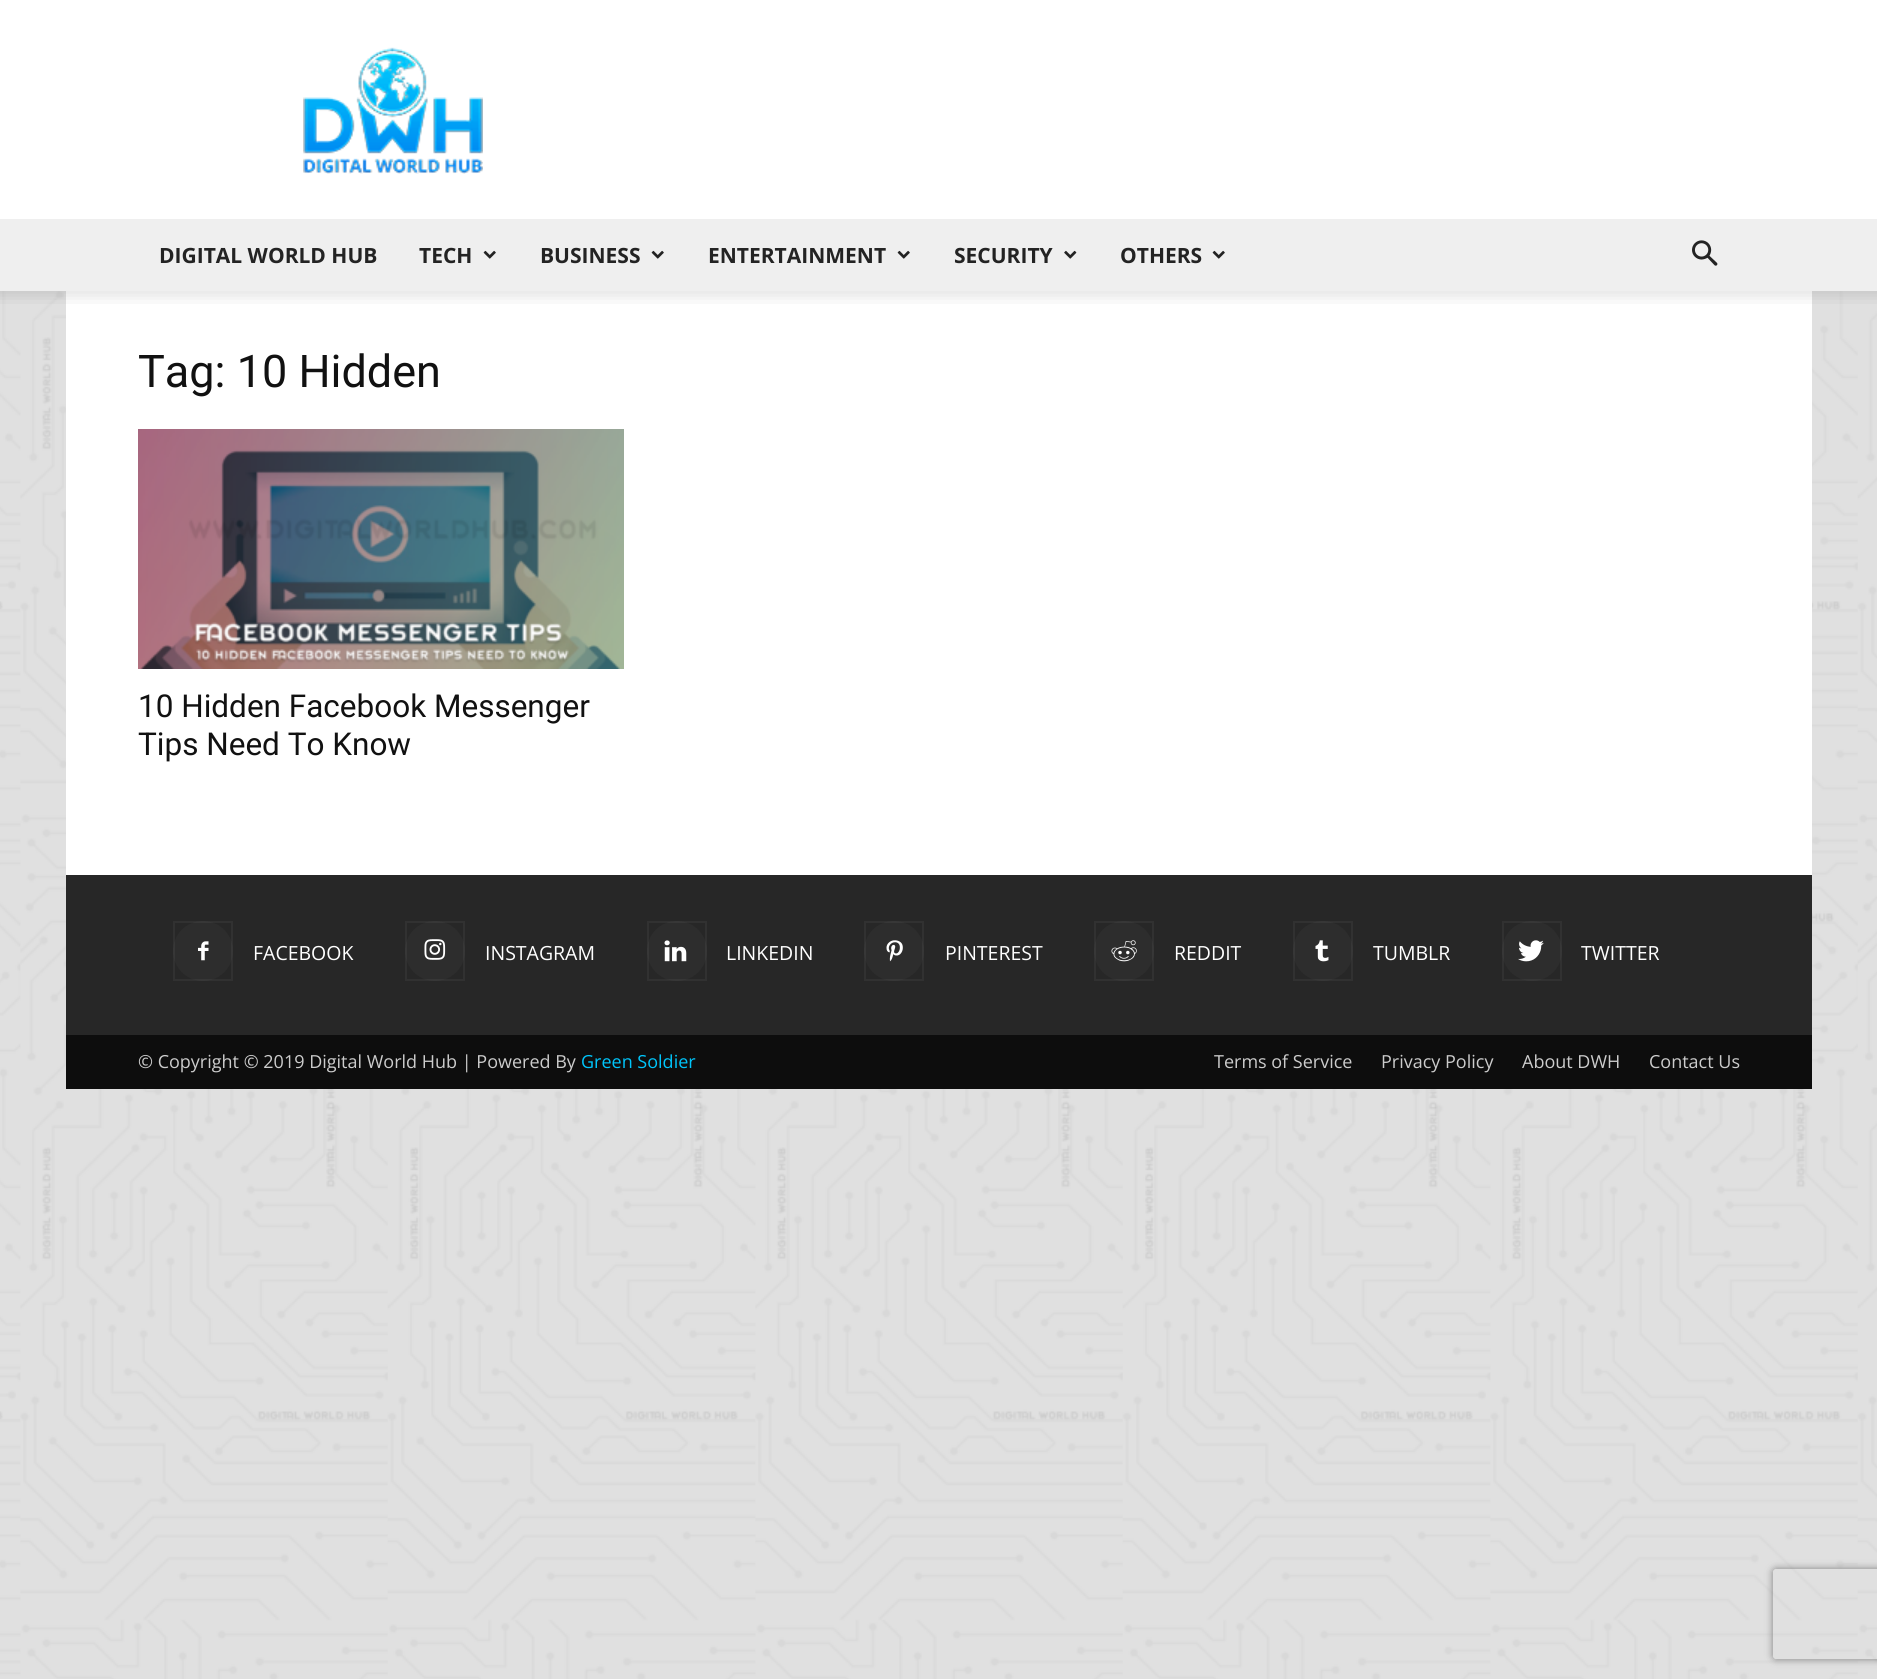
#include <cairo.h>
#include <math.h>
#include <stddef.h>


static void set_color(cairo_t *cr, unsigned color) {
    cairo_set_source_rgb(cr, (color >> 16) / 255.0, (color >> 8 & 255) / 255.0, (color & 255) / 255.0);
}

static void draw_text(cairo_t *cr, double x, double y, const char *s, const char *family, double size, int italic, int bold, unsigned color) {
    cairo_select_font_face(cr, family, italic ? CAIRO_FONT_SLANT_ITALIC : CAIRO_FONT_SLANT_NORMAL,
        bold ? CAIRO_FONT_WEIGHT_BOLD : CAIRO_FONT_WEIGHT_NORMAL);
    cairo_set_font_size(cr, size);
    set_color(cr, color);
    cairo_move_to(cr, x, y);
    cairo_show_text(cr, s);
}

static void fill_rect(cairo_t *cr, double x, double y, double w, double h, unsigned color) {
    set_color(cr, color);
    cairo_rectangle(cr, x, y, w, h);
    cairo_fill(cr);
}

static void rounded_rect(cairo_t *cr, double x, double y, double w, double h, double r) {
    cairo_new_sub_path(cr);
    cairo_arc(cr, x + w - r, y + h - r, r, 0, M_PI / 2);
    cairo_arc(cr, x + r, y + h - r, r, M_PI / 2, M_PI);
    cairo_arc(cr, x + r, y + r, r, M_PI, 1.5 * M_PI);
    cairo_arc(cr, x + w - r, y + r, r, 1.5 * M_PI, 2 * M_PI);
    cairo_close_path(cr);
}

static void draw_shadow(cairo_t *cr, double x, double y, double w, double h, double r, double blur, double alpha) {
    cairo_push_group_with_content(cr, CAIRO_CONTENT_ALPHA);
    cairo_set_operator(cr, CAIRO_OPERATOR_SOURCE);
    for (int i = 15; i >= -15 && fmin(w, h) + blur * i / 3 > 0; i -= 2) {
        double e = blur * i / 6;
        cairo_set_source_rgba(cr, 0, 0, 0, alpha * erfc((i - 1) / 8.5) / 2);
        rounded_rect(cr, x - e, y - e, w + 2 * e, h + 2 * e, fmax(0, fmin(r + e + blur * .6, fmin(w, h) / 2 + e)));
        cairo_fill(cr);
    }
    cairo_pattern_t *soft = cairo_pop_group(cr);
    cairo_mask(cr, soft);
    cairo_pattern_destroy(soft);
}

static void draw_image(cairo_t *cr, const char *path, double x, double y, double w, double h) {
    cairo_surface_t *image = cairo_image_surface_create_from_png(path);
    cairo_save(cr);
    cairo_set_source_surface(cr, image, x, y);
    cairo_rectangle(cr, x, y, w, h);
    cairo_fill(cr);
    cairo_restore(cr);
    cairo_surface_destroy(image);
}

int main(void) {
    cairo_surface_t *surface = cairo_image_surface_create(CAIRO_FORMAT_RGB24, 1877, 1679);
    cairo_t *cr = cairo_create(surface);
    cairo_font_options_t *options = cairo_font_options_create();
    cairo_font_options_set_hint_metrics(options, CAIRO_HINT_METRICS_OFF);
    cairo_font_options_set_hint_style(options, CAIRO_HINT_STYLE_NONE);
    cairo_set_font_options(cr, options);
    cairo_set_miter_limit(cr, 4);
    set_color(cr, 0xFFFFFF);
    cairo_paint(cr);
    draw_image(cr, "assets/img1.png", 0, 291, 1877, 1388);
    draw_image(cr, "assets/img2.png", 303, 47, 180, 127);
    fill_rect(cr, 0, 219, 1877, 72, 0xEFEFEF);
    draw_text(cr, 159, 263, "DIGITAL WORLD HUB", "Open Sans", 21, 0, 1, 0x232323);
    draw_text(cr, 419, 263, "TECH", "Open Sans", 21, 0, 1, 0x232323);
    draw_image(cr, "assets/img3.png", 483, 250, 13, 9);
    draw_text(cr, 540, 263, "BUSINESS", "Open Sans", 21, 0, 1, 0x232323);
    draw_image(cr, "assets/img3.png", 651, 250, 13, 9);
    draw_text(cr, 708, 263, "ENTERTAINMENT", "Open Sans", 21, 0, 1, 0x232323);
    draw_image(cr, "assets/img3.png", 897, 250, 13, 9);
    draw_text(cr, 954, 263, "SECURITY", "Open Sans", 21, 0, 1, 0x232323);
    draw_image(cr, "assets/img4.png", 1064, 250, 13, 9);
    draw_text(cr, 1120, 263, "OTHERS", "Open Sans", 21, 0, 1, 0x232323);
    draw_image(cr, "assets/img3.png", 1212, 250, 13, 9);
    draw_image(cr, "assets/img5.png", 1692, 240, 26, 26);
    fill_rect(cr, 66, 291, 1746, 584, 0xFFFFFF);
    draw_image(cr, "assets/img6.png", 0, 291, 1877, 13);
    draw_text(cr, 138, 387, "Tag: 10 Hidden", "Roboto", 45, 0, 0, 0x111111);
    draw_image(cr, "assets/img7.png", 138, 429, 486, 240);
    draw_text(cr, 138, 717, "10 Hidden Facebook Messenger", "Roboto", 31.5, 0, 0, 0x111111);
    draw_text(cr, 138, 755, "Tips Need To Know", "Roboto", 31.5, 0, 0, 0x111111);
    fill_rect(cr, 66, 875, 1746, 160, 0x272727);
    set_color(cr, 0x2D2D2D);
    cairo_new_path(cr);
    cairo_arc(cr, 203, 951, 30, 0, 2 * M_PI);
    cairo_fill(cr);
    draw_image(cr, "assets/img8.png", 198, 941, 11, 20);
    cairo_rectangle(cr, 174, 922, 58, 58);
    cairo_set_source_rgba(cr, 1, 1, 1, 0.05);
    cairo_stroke(cr);
    draw_text(cr, 253, 960, "FACEBOOK", "Open Sans", 19.5, 0, 0, 0xFFFFFF);
    set_color(cr, 0x2D2D2D);
    cairo_new_path(cr);
    cairo_arc(cr, 435, 951, 30, 0, 2 * M_PI);
    cairo_fill(cr);
    draw_image(cr, "assets/img9.png", 424, 939, 22, 21);
    cairo_rectangle(cr, 406, 922, 58, 58);
    cairo_set_source_rgba(cr, 1, 1, 1, 0.05);
    cairo_stroke(cr);
    draw_text(cr, 485, 960, "INSTAGRAM", "Open Sans", 19.5, 0, 0, 0xFFFFFF);
    set_color(cr, 0x2D2D2D);
    cairo_new_path(cr);
    cairo_arc(cr, 677, 951, 30, 0, 2 * M_PI);
    cairo_fill(cr);
    draw_image(cr, "assets/img10.png", 664, 940, 23, 22);
    cairo_rectangle(cr, 648, 922, 58, 58);
    cairo_set_source_rgba(cr, 1, 1, 1, 0.05);
    cairo_stroke(cr);
    draw_text(cr, 726, 960, "LINKEDIN", "Open Sans", 19.5, 0, 0, 0xFFFFFF);
    set_color(cr, 0x2D2D2D);
    cairo_new_path(cr);
    cairo_arc(cr, 894, 951, 30, 0, 2 * M_PI);
    cairo_fill(cr);
    draw_image(cr, "assets/img11.png", 886, 940, 17, 22);
    cairo_rectangle(cr, 865, 922, 58, 58);
    cairo_set_source_rgba(cr, 1, 1, 1, 0.05);
    cairo_stroke(cr);
    draw_text(cr, 945, 960, "PINTEREST", "Open Sans", 19.5, 0, 0, 0xFFFFFF);
    set_color(cr, 0x2D2D2D);
    cairo_new_path(cr);
    cairo_arc(cr, 1124, 951, 30, 0, 2 * M_PI);
    cairo_fill(cr);
    draw_image(cr, "assets/img12.png", 1111, 940, 26, 22);
    cairo_rectangle(cr, 1095, 922, 58, 58);
    cairo_set_source_rgba(cr, 1, 1, 1, 0.05);
    cairo_stroke(cr);
    draw_text(cr, 1174, 960, "REDDIT", "Open Sans", 19.5, 0, 0, 0xFFFFFF);
    set_color(cr, 0x2D2D2D);
    cairo_new_path(cr);
    cairo_arc(cr, 1323, 951, 30, 0, 2 * M_PI);
    cairo_fill(cr);
    draw_image(cr, "assets/img13.png", 1315, 940, 14, 22);
    cairo_rectangle(cr, 1294, 922, 58, 58);
    cairo_set_source_rgba(cr, 1, 1, 1, 0.05);
    cairo_stroke(cr);
    draw_text(cr, 1373, 960, "TUMBLR", "Open Sans", 19.5, 0, 0, 0xFFFFFF);
    set_color(cr, 0x2D2D2D);
    cairo_new_path(cr);
    cairo_arc(cr, 1532, 951, 30, 0, 2 * M_PI);
    cairo_fill(cr);
    draw_image(cr, "assets/img14.png", 1518, 940, 26, 22);
    cairo_rectangle(cr, 1503, 922, 58, 58);
    cairo_set_source_rgba(cr, 1, 1, 1, 0.05);
    cairo_stroke(cr);
    draw_text(cr, 1581, 960, "TWITTER", "Open Sans", 19.5, 0, 0, 0xFFFFFF);
    fill_rect(cr, 66, 1035, 1746, 54, 0x0D0D0D);
    draw_text(cr, 138, 1068, "© Copyright © 2019 Digital World Hub | Powered By", "Open Sans", 18, 0, 0, 0xCCCCCC);
    draw_text(cr, 581, 1068, "Green Soldier", "Open Sans", 18, 0, 0, 0x00C5FB);
    draw_text(cr, 1214, 1068, "Terms of Service", "Open Sans", 18, 0, 0, 0xCCCCCC);
    draw_text(cr, 1381, 1068, "Privacy Policy", "Open Sans", 18, 0, 0, 0xCCCCCC);
    draw_text(cr, 1522, 1068, "About DWH", "Open Sans", 18, 0, 0, 0xCCCCCC);
    draw_text(cr, 1649, 1068, "Contact Us", "Open Sans", 18, 0, 0, 0xCCCCCC);
    cairo_save(cr);
    cairo_set_fill_rule(cr, CAIRO_FILL_RULE_EVEN_ODD);
    cairo_new_path(cr);
    cairo_move_to(cr, 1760, 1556);
    cairo_line_to(cr, 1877, 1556);
    cairo_line_to(cr, 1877, 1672);
    cairo_line_to(cr, 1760, 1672);
    cairo_close_path(cr);
    cairo_move_to(cr, 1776, 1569);
    cairo_line_to(cr, 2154, 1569);
    cairo_curve_to(cr, 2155.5, 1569, 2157, 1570.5, 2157, 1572);
    cairo_line_to(cr, 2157, 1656);
    cairo_curve_to(cr, 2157, 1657.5, 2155.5, 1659, 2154, 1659);
    cairo_line_to(cr, 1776, 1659);
    cairo_curve_to(cr, 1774.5, 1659, 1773, 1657.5, 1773, 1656);
    cairo_line_to(cr, 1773, 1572);
    cairo_curve_to(cr, 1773, 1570.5, 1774.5, 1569, 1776, 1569);
    cairo_close_path(cr);
    cairo_clip(cr);
    set_color(cr, 0x808080);
    draw_shadow(cr, 1773, 1569, 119, 90, 3, 4, 1);
    cairo_restore(cr);
    cairo_surface_write_to_png(surface, "output.png");
    cairo_font_options_destroy(options);
    cairo_destroy(cr);
    cairo_surface_destroy(surface);
    return 0;
}
